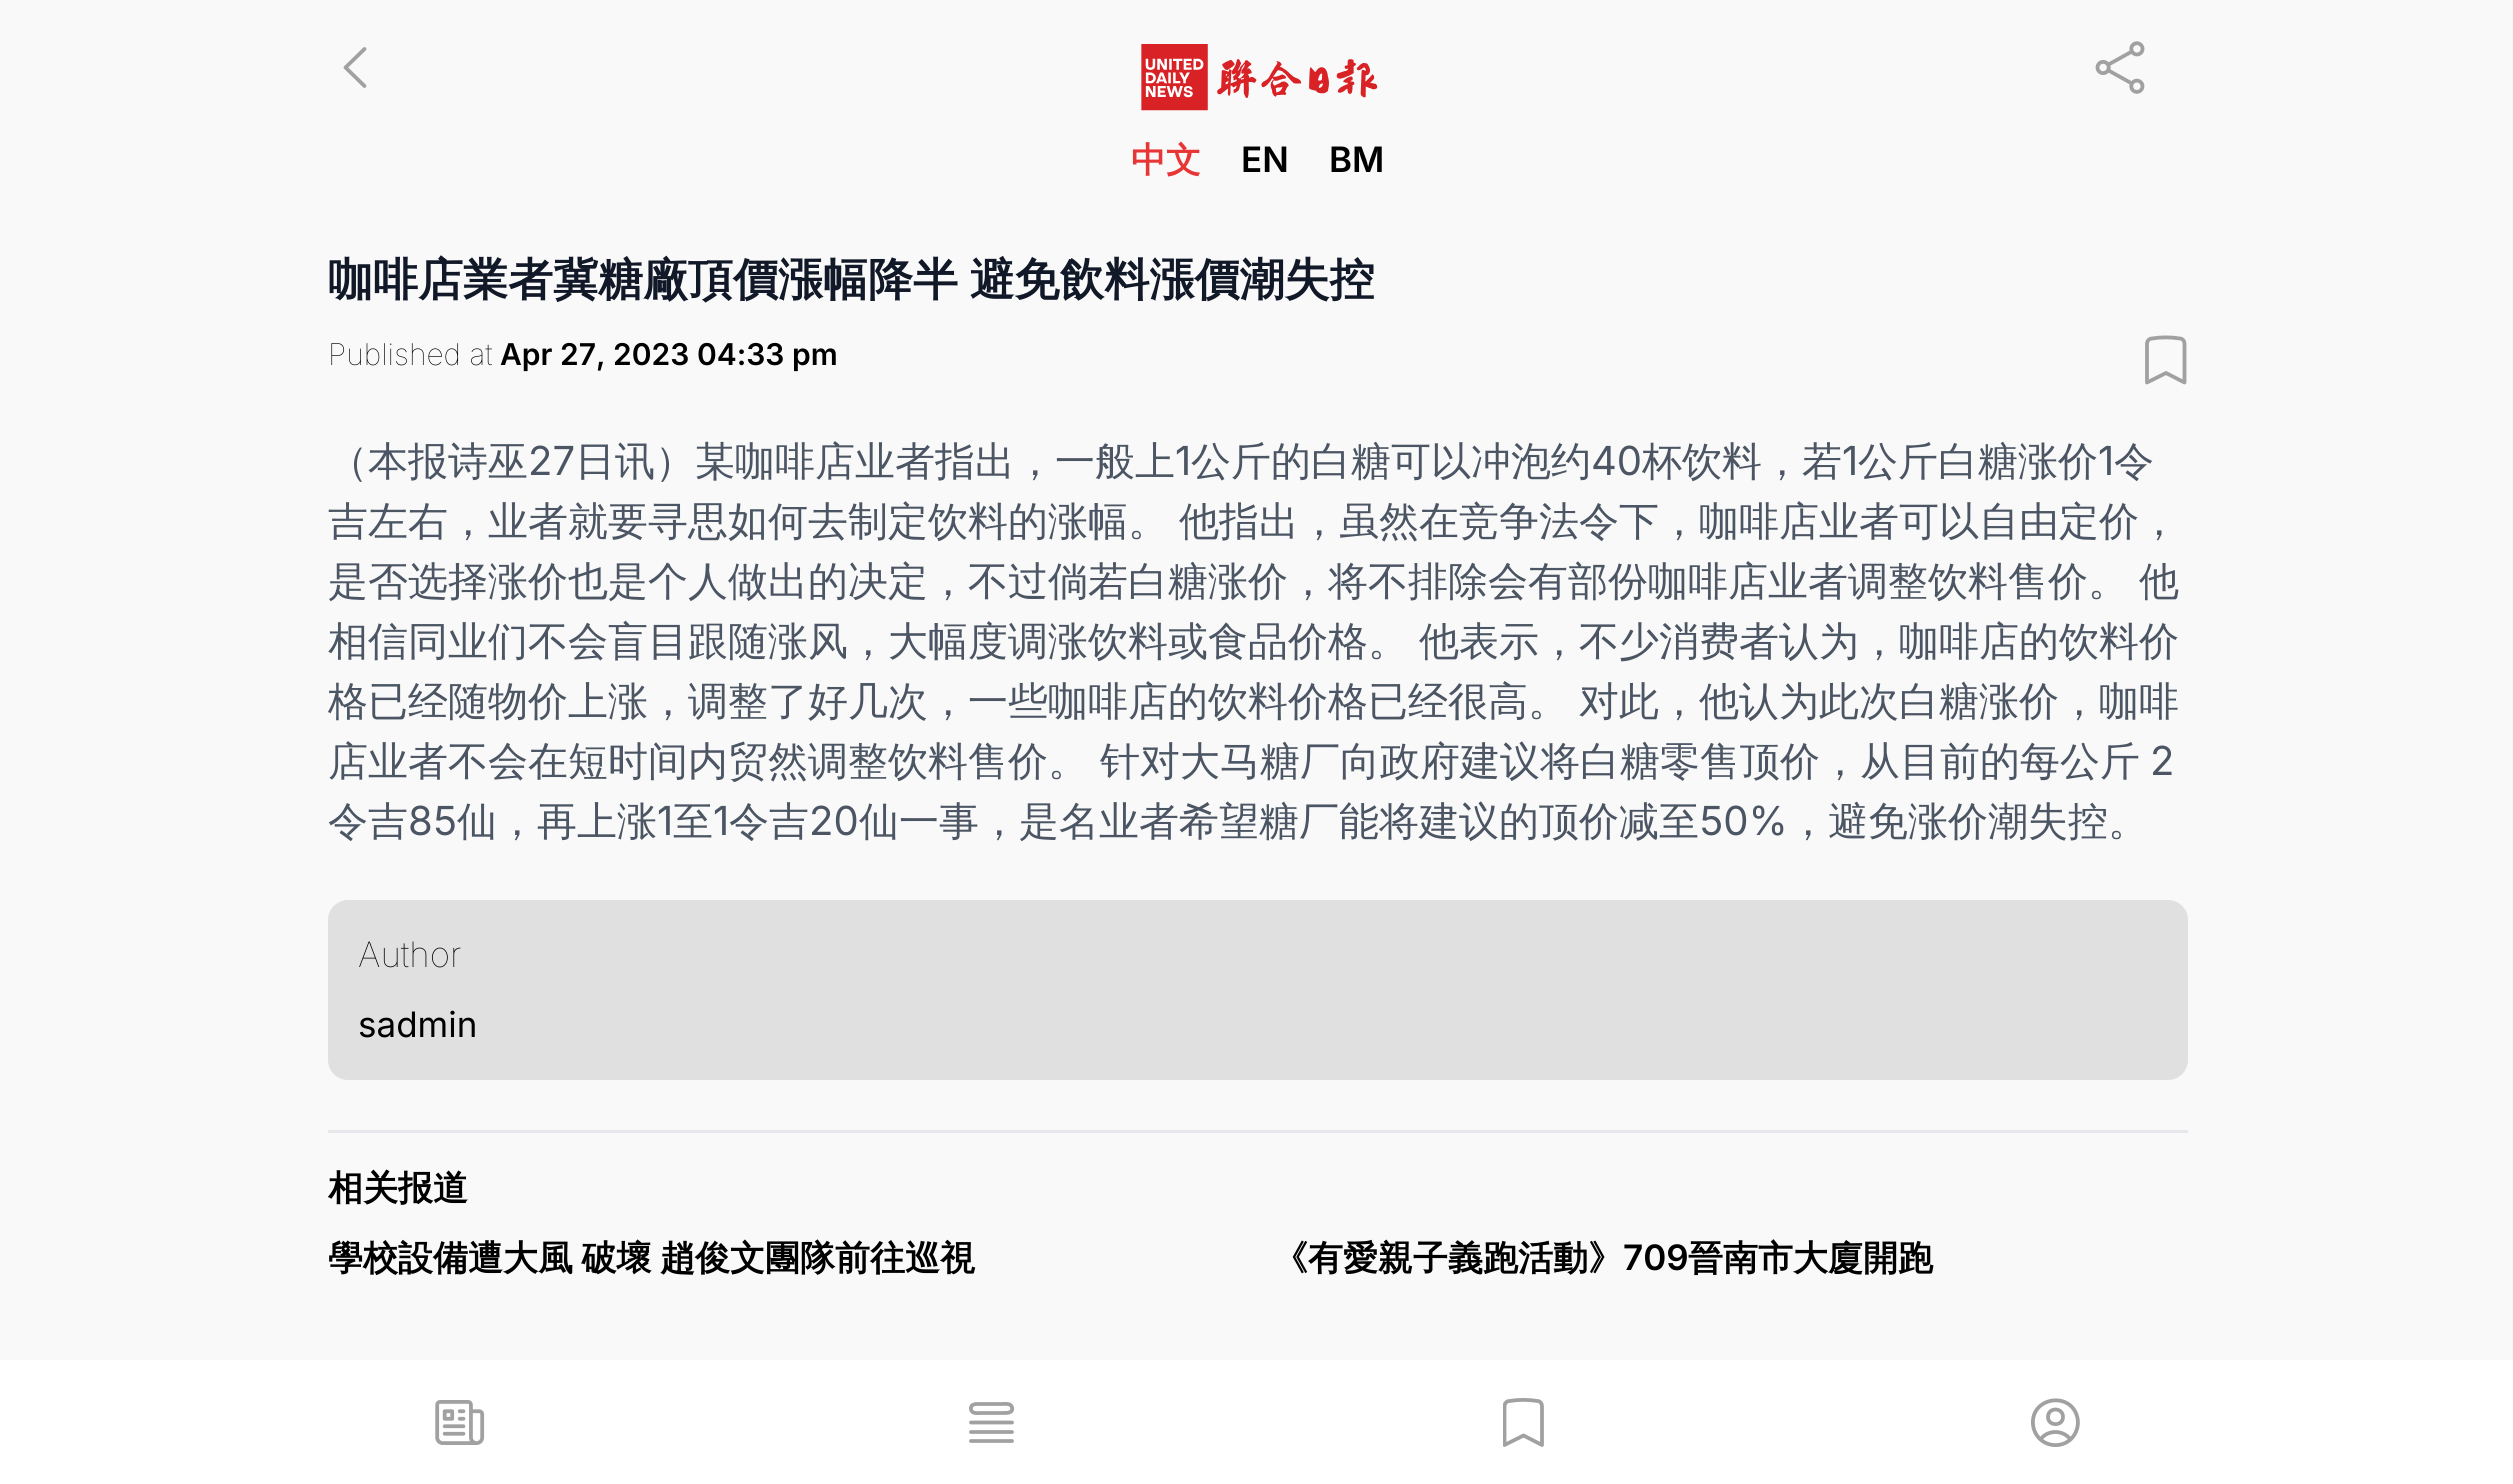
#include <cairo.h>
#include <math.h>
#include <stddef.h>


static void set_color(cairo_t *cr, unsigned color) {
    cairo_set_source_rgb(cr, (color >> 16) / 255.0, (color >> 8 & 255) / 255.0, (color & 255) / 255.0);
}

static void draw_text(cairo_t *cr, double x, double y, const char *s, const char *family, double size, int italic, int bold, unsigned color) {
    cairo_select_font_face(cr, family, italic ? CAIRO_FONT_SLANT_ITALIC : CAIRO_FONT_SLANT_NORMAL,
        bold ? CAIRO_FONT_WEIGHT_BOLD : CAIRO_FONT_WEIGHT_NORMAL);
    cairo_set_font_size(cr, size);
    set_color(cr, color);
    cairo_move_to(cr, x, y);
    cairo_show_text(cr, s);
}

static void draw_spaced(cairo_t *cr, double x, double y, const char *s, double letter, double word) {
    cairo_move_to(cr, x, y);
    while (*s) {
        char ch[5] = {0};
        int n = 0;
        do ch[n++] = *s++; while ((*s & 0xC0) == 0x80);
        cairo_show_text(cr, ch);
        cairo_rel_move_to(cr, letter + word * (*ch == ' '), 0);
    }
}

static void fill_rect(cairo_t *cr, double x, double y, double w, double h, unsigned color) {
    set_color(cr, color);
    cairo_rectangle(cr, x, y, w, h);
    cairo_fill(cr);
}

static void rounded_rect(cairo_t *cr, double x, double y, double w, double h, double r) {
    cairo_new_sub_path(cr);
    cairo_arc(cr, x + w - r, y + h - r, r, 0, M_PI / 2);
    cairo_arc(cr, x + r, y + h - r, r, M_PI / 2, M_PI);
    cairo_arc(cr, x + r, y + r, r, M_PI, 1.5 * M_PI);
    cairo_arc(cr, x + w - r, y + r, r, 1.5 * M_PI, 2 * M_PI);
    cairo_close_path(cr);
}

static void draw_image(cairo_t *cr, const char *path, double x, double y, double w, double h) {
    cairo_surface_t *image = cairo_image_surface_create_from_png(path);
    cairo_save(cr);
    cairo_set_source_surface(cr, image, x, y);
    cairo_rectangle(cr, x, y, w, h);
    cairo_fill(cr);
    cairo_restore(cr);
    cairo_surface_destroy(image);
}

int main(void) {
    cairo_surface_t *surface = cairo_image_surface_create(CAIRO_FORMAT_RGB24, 2513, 1484);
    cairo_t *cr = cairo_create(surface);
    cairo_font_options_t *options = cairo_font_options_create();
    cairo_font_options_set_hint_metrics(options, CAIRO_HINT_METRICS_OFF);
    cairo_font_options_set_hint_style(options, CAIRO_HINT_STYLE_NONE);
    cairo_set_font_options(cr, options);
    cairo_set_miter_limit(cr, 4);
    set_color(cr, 0xF9F9F9);
    cairo_paint(cr);
    cairo_new_path(cr);
    cairo_move_to(cr, 364.5, 86);
    cairo_line_to(cr, 345.5, 67.5);
    cairo_line_to(cr, 364.5, 49);
    set_color(cr, 0xA1A1A1);
    cairo_set_line_width(cr, 3.8);
    cairo_set_line_cap(cr, CAIRO_LINE_CAP_ROUND);
    cairo_set_line_join(cr, CAIRO_LINE_JOIN_ROUND);
    cairo_stroke(cr);
    draw_image(cr, "assets/img1.png", 1141, 44, 237, 67);
    draw_image(cr, "assets/img2.png", 2095, 41, 50, 53);
    draw_text(cr, 1131, 172, "中文", "WenQuanYi Zen Hei", 35, 0, 1, 0xE83535);
    draw_text(cr, 1241, 172, "EN", "Inter SemiBold", 35, 0, 0, 0x000000);
    draw_text(cr, 1329, 172, "BM", "Inter SemiBold", 35, 0, 0, 0x000000);
    cairo_select_font_face(cr, "WenQuanYi Zen Hei", CAIRO_FONT_SLANT_NORMAL, CAIRO_FONT_WEIGHT_BOLD);
    cairo_set_font_size(cr, 45);
    set_color(cr, 0x111827);
    draw_spaced(cr, 328, 295, "咖啡店業者冀糖廠頂價漲幅降半 避免飲料漲價潮失控", 0, -2);
    draw_text(cr, 328, 365, "Published at", "Inter Thin", 30, 0, 0, 0x000000);
    draw_text(cr, 500, 365, "Apr 27, 2023 04:33 pm", "Inter SemiBold", 30, 0, 0, 0x000000);
    cairo_new_path(cr);
    cairo_move_to(cr, 2180, 338.5);
    cairo_curve_to(cr, 2182.5, 338.5, 2184.5, 341, 2184.5, 344);
    cairo_line_to(cr, 2184.5, 382.5);
    cairo_line_to(cr, 2166, 373);
    cairo_line_to(cr, 2147, 382.5);
    cairo_line_to(cr, 2147, 344);
    cairo_curve_to(cr, 2147, 341, 2149, 338.5, 2152, 338.5);
    cairo_curve_to(cr, 2161, 337, 2170.5, 337, 2180, 338.5);
    cairo_close_path(cr);
    set_color(cr, 0xA1A1A1);
    cairo_stroke(cr);
    draw_text(cr, 328, 475, "（本报诗巫", "WenQuanYi Zen Hei Medium", 40, 0, 0, 0x4B5563);
    draw_text(cr, 528, 475, "27", "Inter", 40, 0, 0, 0x4B5563);
    draw_text(cr, 575, 475, "日讯）某咖啡店业者指出，一般上", "WenQuanYi Zen Hei Medium", 40, 0, 0, 0x4B5563);
    draw_text(cr, 1175, 475, "1", "Inter", 40, 0, 0, 0x4B5563);
    draw_text(cr, 1191, 475, "公斤的白糖可以冲泡约", "WenQuanYi Zen Hei Medium", 40, 0, 0, 0x4B5563);
    draw_text(cr, 1591, 475, "40", "Inter", 40, 0, 0, 0x4B5563);
    draw_text(cr, 1642, 475, "杯饮料，若", "WenQuanYi Zen Hei Medium", 40, 0, 0, 0x4B5563);
    draw_text(cr, 1842, 475, "1", "Inter", 40, 0, 0, 0x4B5563);
    draw_text(cr, 1858, 475, "公斤白糖涨价", "WenQuanYi Zen Hei Medium", 40, 0, 0, 0x4B5563);
    draw_text(cr, 2098, 475, "1", "Inter", 40, 0, 0, 0x4B5563);
    draw_text(cr, 2114, 475, "令", "WenQuanYi Zen Hei Medium", 40, 0, 0, 0x4B5563);
    draw_spaced(cr, 328, 535, "吉左右，业者就要寻思如何去制定饮料的涨幅。 他指出，虽然在竞争法令下，咖啡店业者可以自由定价，", 0, -1);
    draw_spaced(cr, 328, 595, "是否选择涨价也是个人做出的决定，不过倘若白糖涨价，将不排除会有部份咖啡店业者调整饮料售价。 他", 0, -1);
    draw_spaced(cr, 328, 655, "相信同业们不会盲目跟随涨风，大幅度调涨饮料或食品价格。 他表示，不少消费者认为，咖啡店的饮料价", 0, -1);
    draw_spaced(cr, 328, 715, "格已经随物价上涨，调整了好几次，一些咖啡店的饮料价格已经很高。 对此，他认为此次白糖涨价，咖啡", 0, -1);
    draw_text(cr, 328, 775, "店业者不会在短时间内贸然调整饮料售价。 针对大马糖厂向政府建议将白糖零售顶价，从目前的每公斤", "WenQuanYi Zen Hei Medium", 40, 0, 0, 0x4B5563);
    draw_text(cr, 2150, 775, "2", "Inter", 40, 0, 0, 0x4B5563);
    draw_text(cr, 328, 835, "令吉", "WenQuanYi Zen Hei Medium", 40, 0, 0, 0x4B5563);
    draw_text(cr, 408, 835, "85", "Inter", 40, 0, 0, 0x4B5563);
    draw_text(cr, 457, 835, "仙，再上涨", "WenQuanYi Zen Hei Medium", 40, 0, 0, 0x4B5563);
    draw_text(cr, 657, 835, "1", "Inter", 40, 0, 0, 0x4B5563);
    draw_text(cr, 673, 835, "至", "WenQuanYi Zen Hei Medium", 40, 0, 0, 0x4B5563);
    draw_text(cr, 713, 835, "1", "Inter", 40, 0, 0, 0x4B5563);
    draw_text(cr, 729, 835, "令吉", "WenQuanYi Zen Hei Medium", 40, 0, 0, 0x4B5563);
    draw_text(cr, 809, 835, "20", "Inter", 40, 0, 0, 0x4B5563);
    draw_text(cr, 859, 835, "仙一事，是名业者希望糖厂能将建议的顶价减至", "WenQuanYi Zen Hei Medium", 40, 0, 0, 0x4B5563);
    draw_text(cr, 1699, 835, "50%", "Inter", 40, 0, 0, 0x4B5563);
    draw_text(cr, 1788, 835, "，避免涨价潮失控。", "WenQuanYi Zen Hei Medium", 40, 0, 0, 0x4B5563);
    set_color(cr, 0xE0E0E0);
    rounded_rect(cr, 328, 900, 1860, 180, 20);
    cairo_fill(cr);
    draw_text(cr, 358, 967, "Author", "Inter Thin", 35, 0, 0, 0x000000);
    draw_text(cr, 358, 1037, "sadmin", "Inter", 35, 0, 0, 0x000000);
    fill_rect(cr, 328, 1130, 1860, 3, 0xE5E7EB);
    draw_text(cr, 328, 1200, "相关报道", "WenQuanYi Zen Hei", 35, 0, 1, 0x000000);
    draw_spaced(cr, 328, 1270, "學校設備遭大風 破壞", 0, -2);
    draw_text(cr, 660, 1270, "趙俊文團隊前往巡視", "WenQuanYi Zen Hei", 35, 0, 1, 0x000000);
    draw_text(cr, 1273, 1270, "《有愛親子義跑活動》", "WenQuanYi Zen Hei", 35, 0, 1, 0x000000);
    draw_text(cr, 1623, 1270, "709", "Inter SemiBold", 35, 0, 0, 0x000000);
    draw_text(cr, 1688, 1270, "晉南市大廈開跑", "WenQuanYi Zen Hei", 35, 0, 1, 0x000000);
    fill_rect(cr, 0, 1360, 2513, 124, 0xFFFFFF);
    draw_image(cr, "assets/img3.png", 435, 1400, 50, 45);
    cairo_new_path(cr);
    cairo_move_to(cr, 971, 1422.5);
    cairo_line_to(cr, 1012, 1422.5);
    cairo_move_to(cr, 971, 1432);
    cairo_line_to(cr, 1012, 1432);
    cairo_move_to(cr, 971, 1441);
    cairo_line_to(cr, 1012, 1441);
    cairo_move_to(cr, 975.5, 1404);
    cairo_line_to(cr, 1002, 1404);
    cairo_curve_to(cr, 1005.5, 1404, 1011, 1403, 1012, 1407.5);
    cairo_curve_to(cr, 1013.5, 1413.5, 1006, 1413, 1002, 1413);
    cairo_line_to(cr, 981, 1413);
    cairo_curve_to(cr, 977.5, 1413, 972, 1414, 971, 1409.5);
    cairo_curve_to(cr, 970.5, 1407.5, 971.5, 1406, 972.5, 1405);
    cairo_close_path(cr);
    set_color(cr, 0xA1A1A1);
    cairo_stroke(cr);
    cairo_save(cr);
    cairo_rectangle(cr, 1503, 1398, 42, 50);
    cairo_clip(cr);
    cairo_new_path(cr);
    cairo_move_to(cr, 1537.5, 1401);
    cairo_curve_to(cr, 1540, 1401, 1542, 1403.5, 1542, 1406.5);
    cairo_line_to(cr, 1542, 1445);
    cairo_line_to(cr, 1523.5, 1435.5);
    cairo_line_to(cr, 1504.5, 1445);
    cairo_line_to(cr, 1504.5, 1406.5);
    cairo_curve_to(cr, 1504.5, 1403.5, 1506.5, 1401, 1509.5, 1401);
    cairo_curve_to(cr, 1518.5, 1399.5, 1528, 1399.5, 1537.5, 1401);
    cairo_close_path(cr);
    cairo_stroke(cr);
    cairo_restore(cr);
    cairo_new_path(cr);
    cairo_move_to(cr, 2070.5, 1439.5);
    cairo_curve_to(cr, 2063, 1429.5, 2047.5, 1429.5, 2040.5, 1439.5);
    cairo_move_to(cr, 2070.5, 1439.5);
    cairo_curve_to(cr, 2076.5, 1434, 2079, 1425.5, 2077.5, 1418);
    cairo_curve_to(cr, 2071.5, 1390.5, 2030.5, 1397, 2033, 1424.5);
    cairo_curve_to(cr, 2033.5, 1430, 2036, 1435.5, 2040.5, 1439.5);
    cairo_move_to(cr, 2070.5, 1439.5);
    cairo_curve_to(cr, 2062, 1447, 2049, 1447, 2040.5, 1439.5);
    cairo_move_to(cr, 2063, 1417);
    cairo_curve_to(cr, 2063, 1426.5, 2048, 1426.5, 2048, 1417);
    cairo_curve_to(cr, 2048, 1407, 2063, 1407, 2063, 1417);
    cairo_close_path(cr);
    cairo_stroke(cr);
    cairo_surface_write_to_png(surface, "output.png");
    cairo_font_options_destroy(options);
    cairo_destroy(cr);
    cairo_surface_destroy(surface);
    return 0;
}
